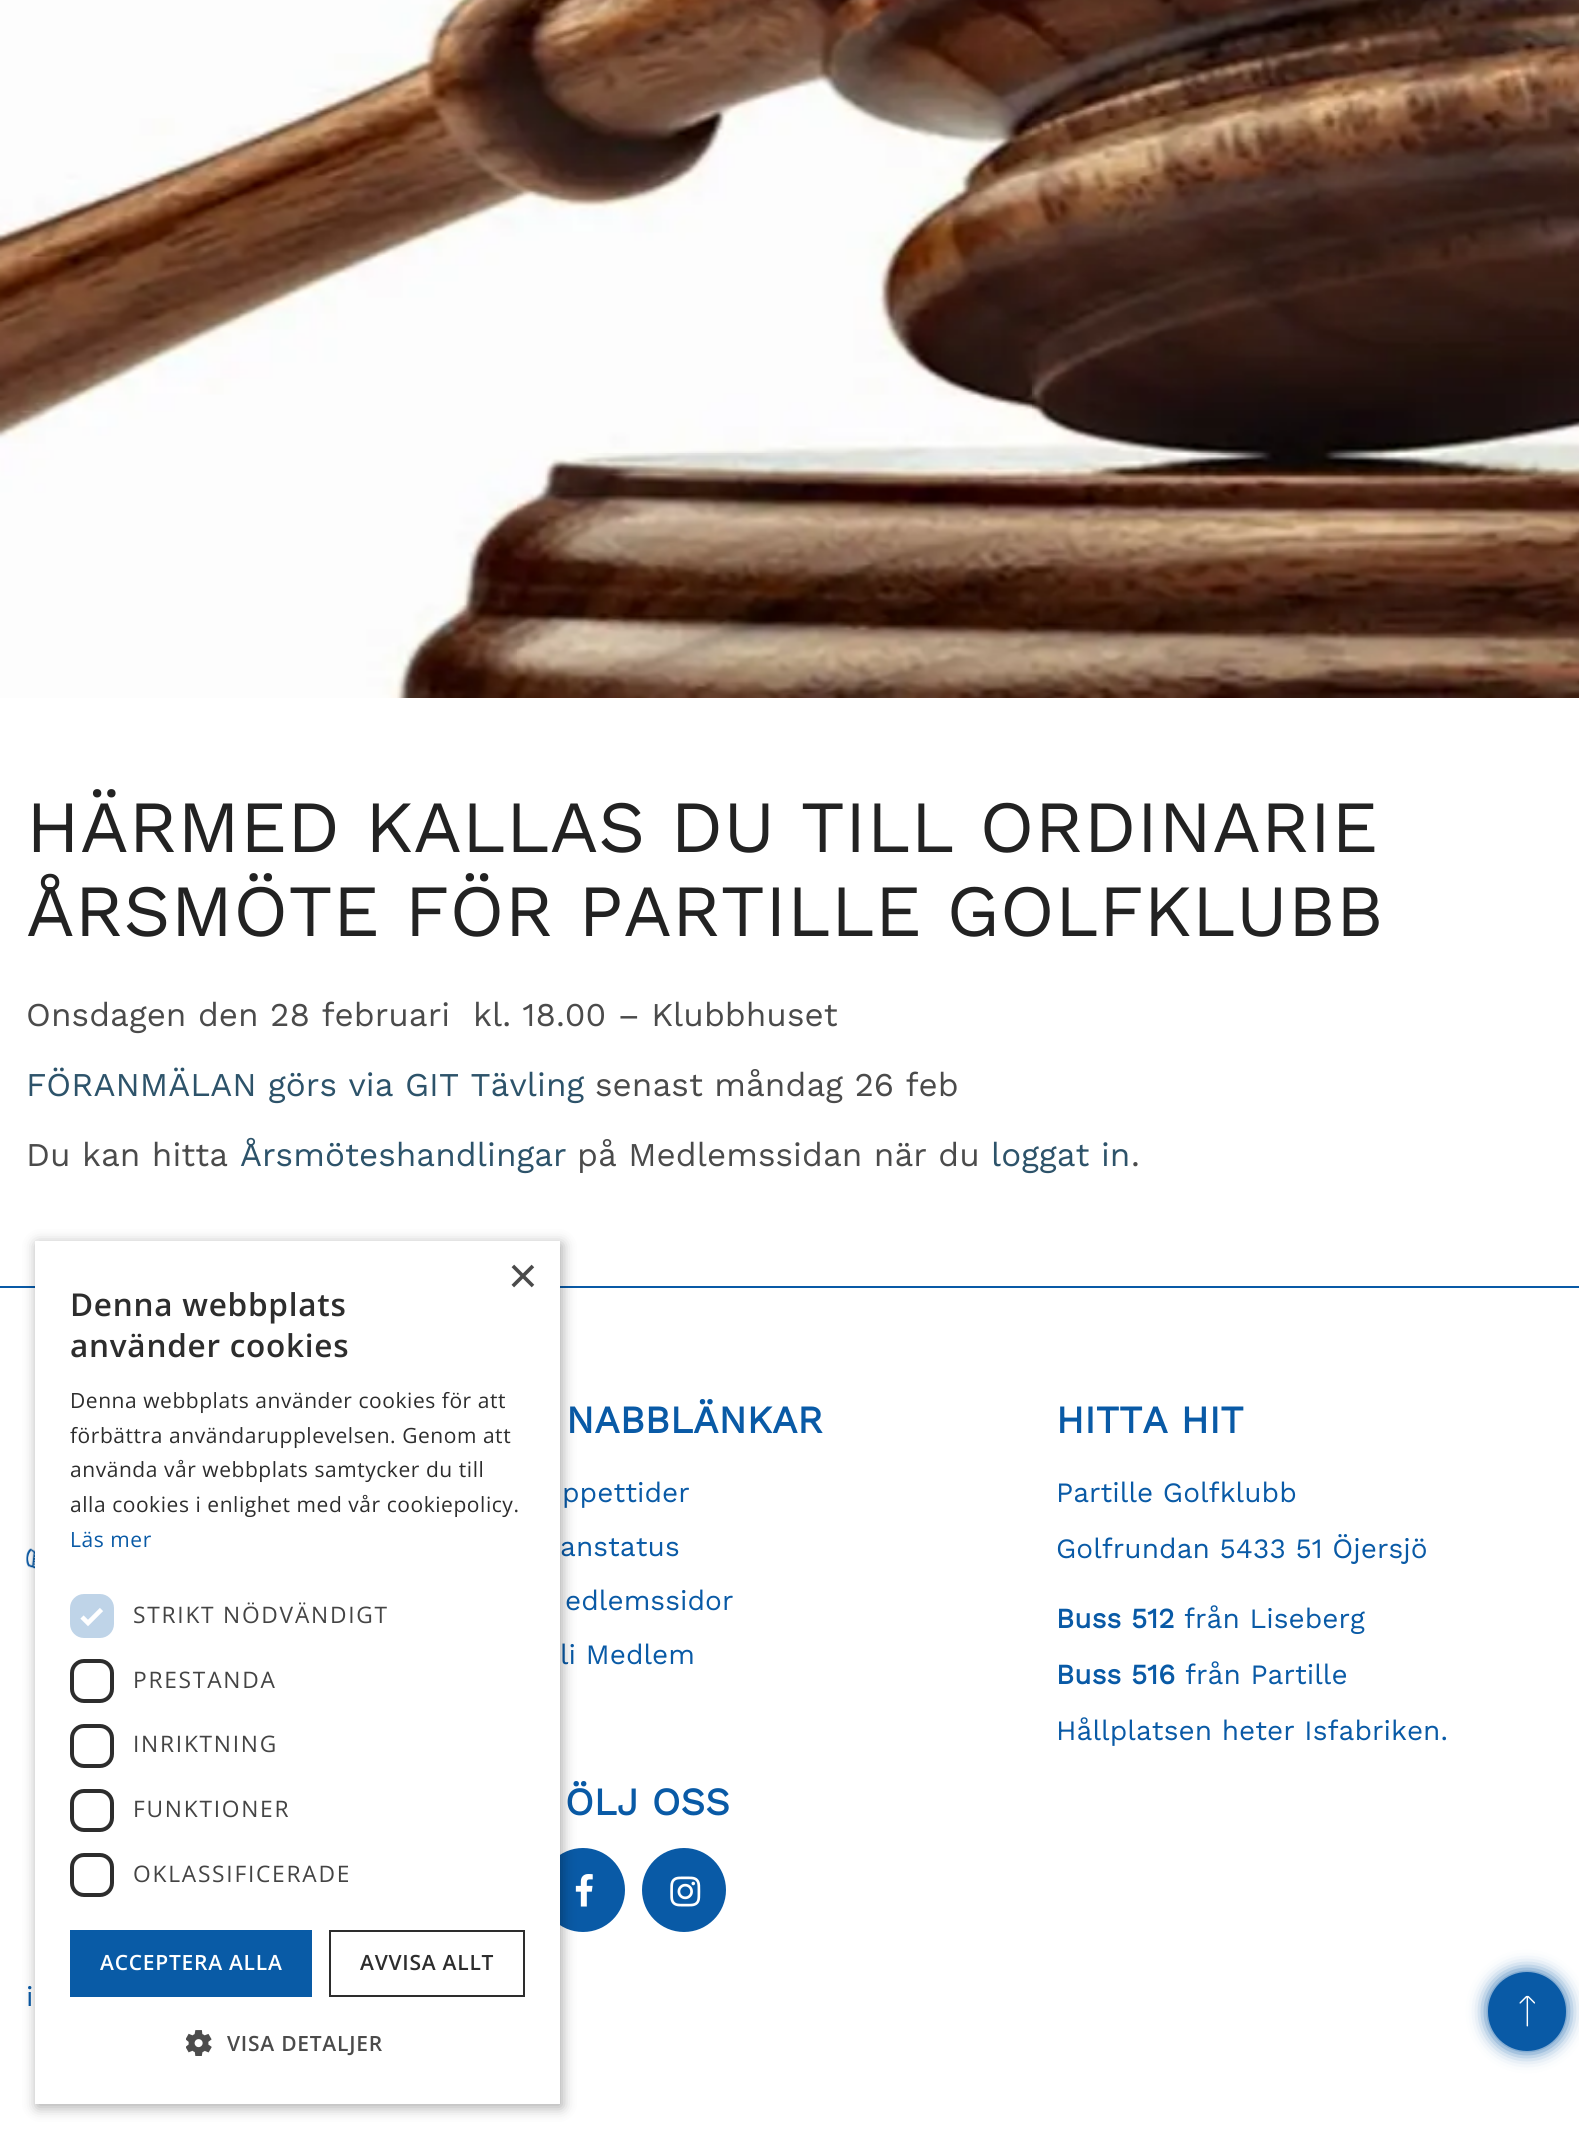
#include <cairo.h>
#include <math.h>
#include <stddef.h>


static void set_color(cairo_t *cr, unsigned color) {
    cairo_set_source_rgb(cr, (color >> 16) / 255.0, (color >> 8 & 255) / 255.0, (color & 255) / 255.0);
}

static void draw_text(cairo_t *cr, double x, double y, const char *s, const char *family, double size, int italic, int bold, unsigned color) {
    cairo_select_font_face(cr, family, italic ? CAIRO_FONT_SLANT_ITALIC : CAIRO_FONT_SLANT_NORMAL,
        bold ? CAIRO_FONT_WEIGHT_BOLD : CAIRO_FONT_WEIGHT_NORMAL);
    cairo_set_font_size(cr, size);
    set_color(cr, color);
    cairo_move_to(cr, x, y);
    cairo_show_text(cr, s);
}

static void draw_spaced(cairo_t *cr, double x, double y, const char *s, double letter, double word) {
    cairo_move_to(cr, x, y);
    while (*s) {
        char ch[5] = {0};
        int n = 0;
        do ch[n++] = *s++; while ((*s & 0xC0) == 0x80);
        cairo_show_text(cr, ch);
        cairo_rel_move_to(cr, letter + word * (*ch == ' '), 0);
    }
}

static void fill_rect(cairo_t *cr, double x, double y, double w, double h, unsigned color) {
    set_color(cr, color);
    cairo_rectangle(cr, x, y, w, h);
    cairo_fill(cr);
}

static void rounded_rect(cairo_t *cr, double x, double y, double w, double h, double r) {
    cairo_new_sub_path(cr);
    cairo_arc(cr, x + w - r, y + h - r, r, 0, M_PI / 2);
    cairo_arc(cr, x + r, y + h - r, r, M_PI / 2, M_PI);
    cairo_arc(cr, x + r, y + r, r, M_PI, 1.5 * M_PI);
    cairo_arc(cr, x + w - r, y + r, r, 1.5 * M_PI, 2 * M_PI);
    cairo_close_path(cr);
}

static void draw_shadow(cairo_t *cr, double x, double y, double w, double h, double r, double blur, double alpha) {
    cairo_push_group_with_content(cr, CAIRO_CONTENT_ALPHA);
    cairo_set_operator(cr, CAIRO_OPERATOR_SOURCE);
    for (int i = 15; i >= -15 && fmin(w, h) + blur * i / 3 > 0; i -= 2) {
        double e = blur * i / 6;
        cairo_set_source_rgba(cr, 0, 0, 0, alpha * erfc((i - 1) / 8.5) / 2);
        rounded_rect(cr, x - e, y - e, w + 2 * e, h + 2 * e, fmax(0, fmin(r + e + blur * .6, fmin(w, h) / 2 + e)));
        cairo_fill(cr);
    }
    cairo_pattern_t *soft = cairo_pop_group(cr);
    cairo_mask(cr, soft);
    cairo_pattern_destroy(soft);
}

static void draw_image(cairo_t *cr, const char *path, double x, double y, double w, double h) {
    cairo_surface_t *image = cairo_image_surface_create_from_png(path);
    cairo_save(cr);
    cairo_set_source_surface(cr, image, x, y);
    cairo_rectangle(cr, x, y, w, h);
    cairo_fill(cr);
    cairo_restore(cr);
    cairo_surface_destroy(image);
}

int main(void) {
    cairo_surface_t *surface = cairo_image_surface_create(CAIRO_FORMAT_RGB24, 1579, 2138);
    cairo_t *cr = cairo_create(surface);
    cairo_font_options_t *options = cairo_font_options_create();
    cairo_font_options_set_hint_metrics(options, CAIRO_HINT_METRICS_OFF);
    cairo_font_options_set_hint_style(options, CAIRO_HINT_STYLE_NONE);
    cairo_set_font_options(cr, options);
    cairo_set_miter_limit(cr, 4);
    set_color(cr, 0xFFFFFF);
    cairo_paint(cr);
    draw_image(cr, "assets/img1.png", 0, 0, 1579, 698);
    draw_text(cr, 26, 852, "HÄRMED KALLAS DU TILL ORDINARIE", "Work Sans", 73.5, 0, 0, 0x222222);
    draw_text(cr, 26, 936, "ÅRSMÖTE FÖR PARTILLE GOLFKLUBB", "Work Sans", 73.5, 0, 0, 0x222222);
    cairo_set_font_size(cr, 33.25);
    set_color(cr, 0x4B4B4B);
    draw_spaced(cr, 26, 1026, "Onsdagen den 28 februari  kl. 18.00 – Klubbhuset", 0.05, 0);
    set_color(cr, 0x2D536A);
    draw_spaced(cr, 26, 1096, "FÖRANMÄLAN görs via GIT Tävling", 0.05, 0);
    set_color(cr, 0x4B4B4B);
    draw_spaced(cr, 595, 1096, "senast måndag 26 feb", 0.05, 0);
    draw_spaced(cr, 26, 1166, "Du kan hitta", 0.05, 0);
    set_color(cr, 0x2D536A);
    draw_spaced(cr, 240, 1166, "Årsmöteshandlingar", 0.05, 0);
    set_color(cr, 0x4B4B4B);
    draw_spaced(cr, 577, 1166, "på Medlemssidan när du", 0.05, 0);
    set_color(cr, 0x2D536A);
    draw_spaced(cr, 991, 1166, "loggat in", 0.05, 0);
    set_color(cr, 0x4B4B4B);
    draw_spaced(cr, 1131, 1166, ".", 0.05, 0);
    fill_rect(cr, 0, 1286, 1579, 2, 0x095AA6);
    draw_image(cr, "assets/img2.png", 26, 1393, 9, 242);
    draw_text(cr, 566, 1433, "NABBLÄNKAR", "Work Sans", 38.5, 0, 1, 0x095AA6);
    cairo_select_font_face(cr, "Work Sans", CAIRO_FONT_SLANT_NORMAL, CAIRO_FONT_WEIGHT_NORMAL);
    cairo_set_font_size(cr, 28);
    draw_spaced(cr, 562, 1502, "ppettider", 0.05, 0);
    draw_spaced(cr, 560, 1556, "anstatus", 0.05, 0);
    draw_spaced(cr, 565, 1610, "edlemssidor", 0.05, 0);
    draw_spaced(cr, 560, 1664, "li Medlem", 0.05, 0);
    draw_text(cr, 1056, 1433, "HITTA HIT", "Work Sans", 38.5, 0, 1, 0x095AA6);
    cairo_select_font_face(cr, "Work Sans", CAIRO_FONT_SLANT_NORMAL, CAIRO_FONT_WEIGHT_NORMAL);
    cairo_set_font_size(cr, 28);
    draw_spaced(cr, 1056, 1502, "Partille Golfklubb", 0.05, 0);
    draw_spaced(cr, 1056, 1558, "Golfrundan 5433 51 Öjersjö", 0.05, 0);
    cairo_select_font_face(cr, "Work Sans", CAIRO_FONT_SLANT_NORMAL, CAIRO_FONT_WEIGHT_BOLD);
    draw_spaced(cr, 1056, 1628, "Buss 512", 0.05, 0);
    cairo_select_font_face(cr, "Work Sans", CAIRO_FONT_SLANT_NORMAL, CAIRO_FONT_WEIGHT_NORMAL);
    draw_spaced(cr, 1184, 1628, "från Liseberg", 0.05, 0);
    cairo_select_font_face(cr, "Work Sans", CAIRO_FONT_SLANT_NORMAL, CAIRO_FONT_WEIGHT_BOLD);
    draw_spaced(cr, 1056, 1684, "Buss 516", 0.05, 0);
    cairo_select_font_face(cr, "Work Sans", CAIRO_FONT_SLANT_NORMAL, CAIRO_FONT_WEIGHT_NORMAL);
    draw_spaced(cr, 1185, 1684, "från Partille", 0.05, 0);
    draw_spaced(cr, 1056, 1740, "Hållplatsen heter Isfabriken.", 0.05, 0);
    draw_text(cr, 565, 1815, "ÖLJ OSS", "Work Sans", 38.5, 0, 1, 0x095AA6);
    cairo_new_path(cr);
    cairo_arc(cr, 583, 1890, 41, 0, 2 * M_PI);
    cairo_fill_preserve(cr);
    cairo_stroke(cr);
    draw_image(cr, "assets/img3.png", 575, 1874, 18, 33);
    cairo_arc(cr, 684, 1890, 41, 0, 2 * M_PI);
    cairo_fill_preserve(cr);
    cairo_stroke(cr);
    draw_image(cr, "assets/img4.png", 670, 1876, 31, 31);
    cairo_select_font_face(cr, "Work Sans", CAIRO_FONT_SLANT_NORMAL, CAIRO_FONT_WEIGHT_NORMAL);
    cairo_set_font_size(cr, 28);
    draw_spaced(cr, 26, 2006, "i", 0.05, 0);
    set_color(cr, 0x000000);
    draw_shadow(cr, 37, 1244, 525, 863, 0, 7, 0.35);
    fill_rect(cr, 35, 1241, 525, 863, 0xFFFFFF);
    draw_text(cr, 508, 1293, "×", "Liberation Sans", 51, 0, 0, 0x4B4B4B);
    cairo_select_font_face(cr, "Open Sans SemiBold", CAIRO_FONT_SLANT_NORMAL, CAIRO_FONT_WEIGHT_NORMAL);
    cairo_set_font_size(cr, 31.5);
    set_color(cr, 0x2D2D2D);
    draw_spaced(cr, 70, 1316, "Denna webbplats", 0.75, 0);
    draw_spaced(cr, 70, 1357, "använder cookies", 0.75, 0);
    cairo_select_font_face(cr, "Open Sans", CAIRO_FONT_SLANT_NORMAL, CAIRO_FONT_WEIGHT_NORMAL);
    cairo_set_font_size(cr, 21);
    draw_spaced(cr, 70, 1408, "Denna webbplats använder cookies för att", 0.55, 0);
    draw_spaced(cr, 70, 1443, "förbättra användarupplevelsen. Genom att", 0.55, 0);
    draw_spaced(cr, 70, 1477, "använda vår webbplats samtycker du till", 0.55, 0);
    draw_spaced(cr, 70, 1512, "alla cookies i enlighet med vår cookiepolicy.", 0.55, 0);
    set_color(cr, 0x095AA6);
    draw_spaced(cr, 70, 1547, "Läs mer", 0.55, 0);
    set_color(cr, 0xBFD4E8);
    rounded_rect(cr, 70, 1594, 44, 44, 14);
    cairo_fill(cr);
    cairo_new_path(cr);
    cairo_move_to(cr, 82, 1617);
    cairo_line_to(cr, 88, 1623);
    cairo_line_to(cr, 101.5, 1609.5);
    set_color(cr, 0xFFFFFF);
    cairo_set_line_width(cr, 4.6);
    cairo_stroke(cr);
    cairo_set_font_size(cr, 22.75);
    set_color(cr, 0x444444);
    draw_spaced(cr, 133, 1623, "STRIKT NÖDVÄNDIGT", 1.75, 0);
    rounded_rect(cr, 72, 1661, 40, 40, 12);
    set_color(cr, 0x2D2D2D);
    cairo_set_line_width(cr, 4);
    cairo_stroke(cr);
    set_color(cr, 0x444444);
    draw_spaced(cr, 133, 1688, "PRESTANDA", 1.75, 0);
    rounded_rect(cr, 72, 1726, 40, 40, 12);
    set_color(cr, 0x2D2D2D);
    cairo_stroke(cr);
    set_color(cr, 0x444444);
    draw_spaced(cr, 133, 1752, "INRIKTNING", 1.75, 0);
    rounded_rect(cr, 72, 1791, 40, 39, 12);
    set_color(cr, 0x2D2D2D);
    cairo_stroke(cr);
    set_color(cr, 0x444444);
    draw_spaced(cr, 133, 1817, "FUNKTIONER", 1.75, 0);
    rounded_rect(cr, 72, 1855, 40, 40, 12);
    set_color(cr, 0x2D2D2D);
    cairo_stroke(cr);
    set_color(cr, 0x444444);
    draw_spaced(cr, 133, 1882, "OKLASSIFICERADE", 1.75, 0);
    fill_rect(cr, 70, 1930, 242, 67, 0x095BA6);
    cairo_select_font_face(cr, "Open Sans SemiBold", CAIRO_FONT_SLANT_NORMAL, CAIRO_FONT_WEIGHT_NORMAL);
    cairo_set_font_size(cr, 21);
    set_color(cr, 0xFFFFFF);
    draw_spaced(cr, 100, 1970, "ACCEPTERA ALLA", 0.75, 0);
    cairo_rectangle(cr, 330, 1931, 194, 65);
    set_color(cr, 0x2D2D2D);
    cairo_set_line_width(cr, 2);
    cairo_stroke(cr);
    draw_spaced(cr, 360, 1970, "AVVISA ALLT", 0.75, 0);
    draw_image(cr, "assets/img5.png", 186, 2030, 26, 26);
    set_color(cr, 0x4B4B4B);
    draw_spaced(cr, 227, 2051, "VISA DETALJER", 0.75, 0);
    set_color(cr, 0x095AA6);
    draw_shadow(cr, 1488, 1972, 78, 79, 39, 9, 1);
    set_color(cr, 0x095AA6);
    rounded_rect(cr, 1489, 1973, 76, 77, 38);
    cairo_fill_preserve(cr);
    cairo_stroke(cr);
    draw_image(cr, "assets/img6.png", 1519, 1995, 16, 32);
    cairo_surface_write_to_png(surface, "output.png");
    cairo_font_options_destroy(options);
    cairo_destroy(cr);
    cairo_surface_destroy(surface);
    return 0;
}
